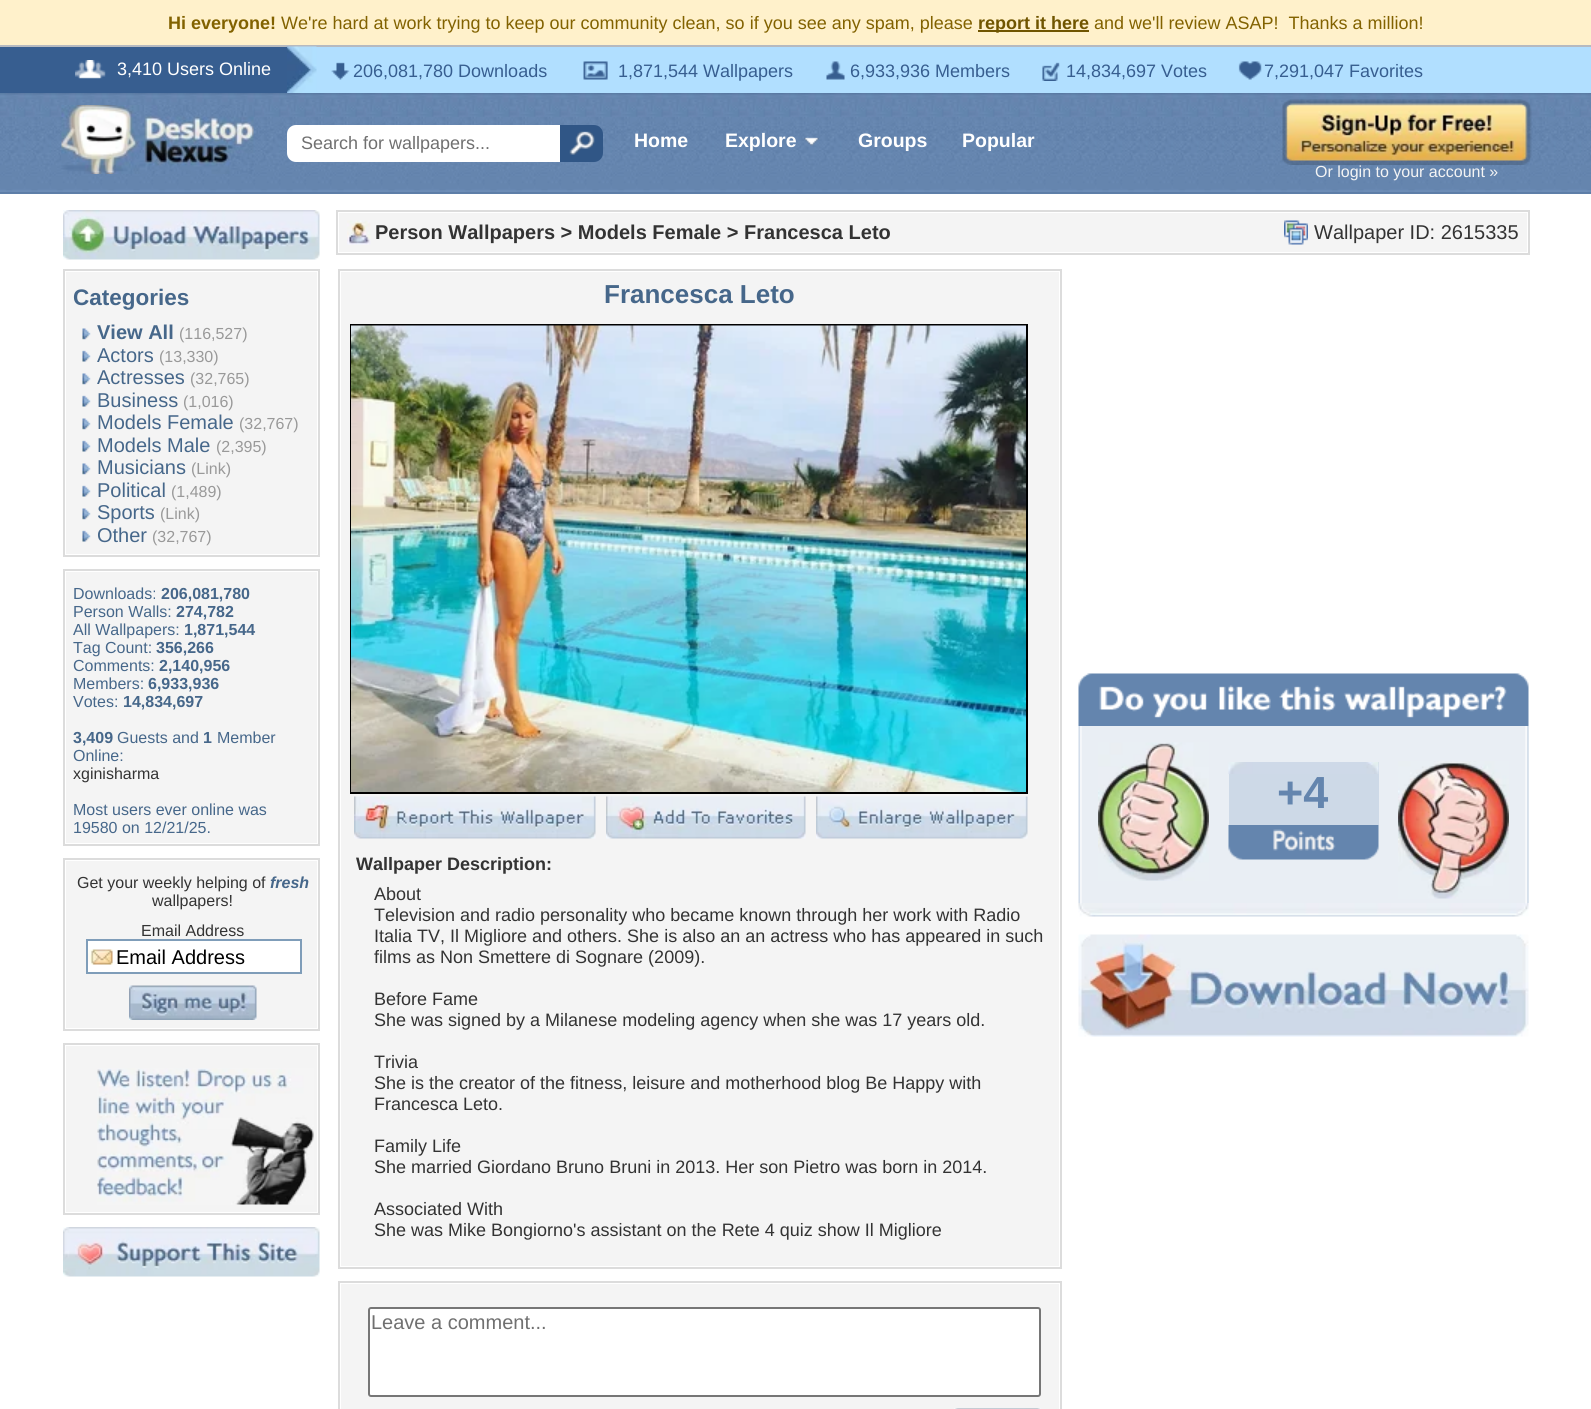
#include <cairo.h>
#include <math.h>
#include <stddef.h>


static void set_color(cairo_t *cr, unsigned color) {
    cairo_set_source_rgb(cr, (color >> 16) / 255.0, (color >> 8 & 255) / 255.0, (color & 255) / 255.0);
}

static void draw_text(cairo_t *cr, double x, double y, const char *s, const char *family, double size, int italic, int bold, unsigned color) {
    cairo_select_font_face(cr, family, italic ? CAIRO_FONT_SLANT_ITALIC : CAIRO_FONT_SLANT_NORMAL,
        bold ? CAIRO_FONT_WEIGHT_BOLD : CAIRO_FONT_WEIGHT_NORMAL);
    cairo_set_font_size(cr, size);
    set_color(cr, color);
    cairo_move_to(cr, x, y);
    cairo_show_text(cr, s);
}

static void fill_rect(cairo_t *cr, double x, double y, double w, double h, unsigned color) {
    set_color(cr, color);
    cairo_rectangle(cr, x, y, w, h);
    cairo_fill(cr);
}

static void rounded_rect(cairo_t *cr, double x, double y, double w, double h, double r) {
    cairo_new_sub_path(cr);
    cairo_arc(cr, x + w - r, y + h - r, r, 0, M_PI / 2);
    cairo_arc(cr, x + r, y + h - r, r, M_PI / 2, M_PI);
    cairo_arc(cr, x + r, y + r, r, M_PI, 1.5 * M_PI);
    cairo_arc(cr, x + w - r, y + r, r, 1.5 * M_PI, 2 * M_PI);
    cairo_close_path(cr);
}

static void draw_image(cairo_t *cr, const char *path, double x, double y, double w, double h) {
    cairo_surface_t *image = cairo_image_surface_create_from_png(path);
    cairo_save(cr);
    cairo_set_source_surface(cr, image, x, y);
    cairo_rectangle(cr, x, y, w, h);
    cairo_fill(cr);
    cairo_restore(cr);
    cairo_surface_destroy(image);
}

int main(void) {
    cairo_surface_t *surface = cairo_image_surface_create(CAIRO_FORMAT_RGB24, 1591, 1409);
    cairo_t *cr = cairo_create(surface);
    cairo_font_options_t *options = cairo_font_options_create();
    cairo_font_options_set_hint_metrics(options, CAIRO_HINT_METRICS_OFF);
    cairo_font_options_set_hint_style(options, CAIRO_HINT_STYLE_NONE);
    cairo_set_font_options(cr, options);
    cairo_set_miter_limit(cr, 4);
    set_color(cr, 0xFFFFFF);
    cairo_paint(cr);
    fill_rect(cr, 0, 0, 1591, 45, 0xFFF1CB);
    draw_text(cr, 168, 29, "Hi everyone!", "Liberation Sans", 18, 0, 1, 0x826200);
    draw_text(cr, 281, 29, "We're hard at work trying to keep our community clean, so if you see any spam, please", "Liberation Sans", 18, 0, 0, 0x826200);
    fill_rect(cr, 978, 30, 111, 2, 0x705500);
    draw_text(cr, 978, 29, "report it here", "Liberation Sans", 18, 0, 1, 0x705500);
    draw_text(cr, 1094, 29, "and we'll review ASAP!  Thanks a million!", "Liberation Sans", 18, 0, 0, 0x826200);
    fill_rect(cr, 316, 47, 1275, 46, 0xB1DFFF);
    fill_rect(cr, 0, 45, 1591, 2, 0xB6BAC0);
    draw_image(cr, "assets/img2.png", 286, 46, 31, 47);
    fill_rect(cr, 0, 47, 287, 46, 0x375E90);
    draw_image(cr, "assets/img1.png", 75, 60, 31, 19);
    draw_text(cr, 117, 75, "3,410 Users Online", "Liberation Sans", 18, 0, 0, 0xFFFFFF);
    draw_image(cr, "assets/img3.png", 331, 62, 19, 18);
    draw_text(cr, 353, 77, "206,081,780 Downloads", "Liberation Sans", 18, 0, 0, 0x375E90);
    draw_image(cr, "assets/img4.png", 583, 61, 25, 19);
    draw_text(cr, 618, 77, "1,871,544 Wallpapers", "Liberation Sans", 18, 0, 0, 0x375E90);
    draw_image(cr, "assets/img5.png", 826, 61, 19, 19);
    draw_text(cr, 850, 77, "6,933,936 Members", "Liberation Sans", 18, 0, 0, 0x375E90);
    draw_image(cr, "assets/img6.png", 1042, 62, 18, 19);
    draw_text(cr, 1066, 77, "14,834,697 Votes", "Liberation Sans", 18, 0, 0, 0x375E90);
    draw_image(cr, "assets/img7.png", 1238, 61, 24, 19);
    draw_text(cr, 1264, 77, "7,291,047 Favorites", "Liberation Sans", 18, 0, 0, 0x375E90);
    fill_rect(cr, 0, 193, 1591, 1, 0x6384AD);
    draw_image(cr, "assets/img8.png", 0, 93, 1591, 101);
    draw_image(cr, "assets/img9.png", 61, 105, 193, 69);
    set_color(cr, 0xFFFFFF);
    cairo_new_path(cr);
    cairo_move_to(cr, 296, 125);
    cairo_line_to(cr, 584, 125);
    cairo_line_to(cr, 584, 162);
    cairo_line_to(cr, 296, 162);
    cairo_curve_to(cr, 291, 162, 287, 158, 287, 153);
    cairo_line_to(cr, 287, 134);
    cairo_curve_to(cr, 287, 129, 291, 125, 296, 125);
    cairo_close_path(cr);
    cairo_fill(cr);
    draw_text(cr, 301, 149, "Search for wallpapers...", "Liberation Sans", 18, 0, 0, 0x707070);
    set_color(cr, 0x305686);
    cairo_new_path(cr);
    cairo_move_to(cr, 560, 125);
    cairo_line_to(cr, 594, 125);
    cairo_curve_to(cr, 599, 125, 603, 129, 603, 134);
    cairo_line_to(cr, 603, 153);
    cairo_curve_to(cr, 603, 158, 599, 162, 594, 162);
    cairo_line_to(cr, 560, 162);
    cairo_close_path(cr);
    cairo_fill(cr);
    draw_image(cr, "assets/img10.png", 569, 131, 26, 24);
    draw_text(cr, 634, 147, "Home", "Liberation Sans", 19.5, 0, 1, 0xFFFFFF);
    draw_text(cr, 725, 147, "Explore", "Liberation Sans", 19.5, 0, 1, 0xFFFFFF);
    draw_image(cr, "assets/img11.png", 804, 137, 15, 9);
    draw_text(cr, 858, 147, "Groups", "Liberation Sans", 19.5, 0, 1, 0xFFFFFF);
    draw_text(cr, 962, 147, "Popular", "Liberation Sans", 19.5, 0, 1, 0xFFFFFF);
    draw_image(cr, "assets/img12.png", 1282, 99, 250, 66);
    draw_text(cr, 1315, 177, "Or login to your account »", "Liberation Sans", 16, 0, 0, 0xF4F4F4);
    draw_image(cr, "assets/img13.png", 63, 210, 257, 50);
    cairo_rectangle(cr, 64, 270, 255, 286);
    set_color(cr, 0xDCDCDC);
    cairo_stroke(cr);
    fill_rect(cr, 66, 272, 251, 282, 0xF4F4F4);
    draw_text(cr, 73, 305, "Categories", "Liberation Sans", 22.5, 0, 1, 0x46678A);
    draw_image(cr, "assets/img14.png", 82, 328, 9, 12);
    draw_text(cr, 97, 339, "View All", "Liberation Sans", 20, 0, 1, 0x46678A);
    draw_text(cr, 179, 339, "(116,527)", "Liberation Sans", 16, 0, 0, 0x999999);
    draw_image(cr, "assets/img15.png", 82, 350, 9, 12);
    draw_text(cr, 97, 362, "Actors", "Liberation Sans", 20, 0, 0, 0x46678A);
    draw_text(cr, 159, 362, "(13,330)", "Liberation Sans", 16, 0, 0, 0x999999);
    draw_image(cr, "assets/img14.png", 82, 373, 9, 12);
    draw_text(cr, 97, 384, "Actresses", "Liberation Sans", 20, 0, 0, 0x46678A);
    draw_text(cr, 190, 384, "(32,765)", "Liberation Sans", 16, 0, 0, 0x999999);
    draw_image(cr, "assets/img15.png", 82, 395, 9, 12);
    draw_text(cr, 97, 407, "Business", "Liberation Sans", 20, 0, 0, 0x46678A);
    draw_text(cr, 183, 407, "(1,016)", "Liberation Sans", 16, 0, 0, 0x999999);
    draw_image(cr, "assets/img14.png", 82, 418, 9, 12);
    draw_text(cr, 97, 429, "Models Female", "Liberation Sans", 20, 0, 0, 0x46678A);
    draw_text(cr, 239, 429, "(32,767)", "Liberation Sans", 16, 0, 0, 0x999999);
    draw_image(cr, "assets/img15.png", 82, 440, 9, 12);
    draw_text(cr, 97, 452, "Models Male", "Liberation Sans", 20, 0, 0, 0x46678A);
    draw_text(cr, 216, 452, "(2,395)", "Liberation Sans", 16, 0, 0, 0x999999);
    draw_image(cr, "assets/img14.png", 82, 463, 9, 12);
    draw_text(cr, 97, 474, "Musicians", "Liberation Sans", 20, 0, 0, 0x46678A);
    draw_text(cr, 191, 474, "(Link)", "Liberation Sans", 16, 0, 0, 0x999999);
    draw_image(cr, "assets/img15.png", 82, 485, 9, 12);
    draw_text(cr, 97, 497, "Political", "Liberation Sans", 20, 0, 0, 0x46678A);
    draw_text(cr, 171, 497, "(1,489)", "Liberation Sans", 16, 0, 0, 0x999999);
    draw_image(cr, "assets/img14.png", 82, 508, 9, 12);
    draw_text(cr, 97, 519, "Sports", "Liberation Sans", 20, 0, 0, 0x46678A);
    draw_text(cr, 160, 519, "(Link)", "Liberation Sans", 16, 0, 0, 0x999999);
    draw_image(cr, "assets/img15.png", 82, 530, 9, 12);
    draw_text(cr, 97, 542, "Other", "Liberation Sans", 20, 0, 0, 0x46678A);
    draw_text(cr, 152, 542, "(32,767)", "Liberation Sans", 16, 0, 0, 0x999999);
    cairo_rectangle(cr, 64, 570, 255, 275);
    set_color(cr, 0xDCDCDC);
    cairo_stroke(cr);
    fill_rect(cr, 66, 572, 251, 271, 0xF4F4F4);
    draw_text(cr, 73, 599, "Downloads:", "Liberation Sans", 16, 0, 0, 0x46678A);
    draw_text(cr, 161, 599, "206,081,780", "Liberation Sans", 16, 0, 1, 0x46678A);
    draw_text(cr, 73, 617, "Person Walls:", "Liberation Sans", 16, 0, 0, 0x46678A);
    draw_text(cr, 176, 617, "274,782", "Liberation Sans", 16, 0, 1, 0x46678A);
    draw_text(cr, 73, 635, "All Wallpapers:", "Liberation Sans", 16, 0, 0, 0x46678A);
    draw_text(cr, 184, 635, "1,871,544", "Liberation Sans", 16, 0, 1, 0x46678A);
    draw_text(cr, 73, 653, "Tag Count:", "Liberation Sans", 16, 0, 0, 0x46678A);
    draw_text(cr, 156, 653, "356,266", "Liberation Sans", 16, 0, 1, 0x46678A);
    draw_text(cr, 73, 671, "Comments:", "Liberation Sans", 16, 0, 0, 0x46678A);
    draw_text(cr, 159, 671, "2,140,956", "Liberation Sans", 16, 0, 1, 0x46678A);
    draw_text(cr, 73, 689, "Members:", "Liberation Sans", 16, 0, 0, 0x46678A);
    draw_text(cr, 148, 689, "6,933,936", "Liberation Sans", 16, 0, 1, 0x46678A);
    draw_text(cr, 73, 707, "Votes:", "Liberation Sans", 16, 0, 0, 0x46678A);
    draw_text(cr, 123, 707, "14,834,697", "Liberation Sans", 16, 0, 1, 0x46678A);
    draw_text(cr, 73, 743, "3,409", "Liberation Sans", 16, 0, 1, 0x46678A);
    draw_text(cr, 117, 743, "Guests and", "Liberation Sans", 16, 0, 0, 0x46678A);
    draw_text(cr, 203, 743, "1", "Liberation Sans", 16, 0, 1, 0x46678A);
    draw_text(cr, 217, 743, "Member", "Liberation Sans", 16, 0, 0, 0x46678A);
    draw_text(cr, 73, 761, "Online:", "Liberation Sans", 16, 0, 0, 0x46678A);
    draw_text(cr, 73, 779, "xginisharma", "Liberation Sans", 16, 0, 0, 0x333333);
    draw_text(cr, 73, 815, "Most users ever online was", "Liberation Sans", 16, 0, 0, 0x46678A);
    draw_text(cr, 73, 833, "19580 on 12/21/25.", "Liberation Sans", 16, 0, 0, 0x46678A);
    cairo_rectangle(cr, 64, 859, 255, 171);
    set_color(cr, 0xDCDCDC);
    cairo_stroke(cr);
    fill_rect(cr, 66, 861, 251, 167, 0xF4F4F4);
    draw_text(cr, 77, 888, "Get your weekly helping of", "Liberation Sans", 16, 0, 0, 0x333333);
    draw_text(cr, 270, 888, "fresh", "Liberation Sans", 16, 1, 1, 0x46678A);
    draw_text(cr, 152, 906, "wallpapers!", "Liberation Sans", 16, 0, 0, 0x333333);
    draw_text(cr, 141, 936, "Email Address", "Liberation Sans", 16, 0, 0, 0x333333);
    fill_rect(cr, 88, 941, 212, 31, 0xFFFFFF);
    draw_image(cr, "assets/img16.png", 88, 949, 25, 16);
    cairo_rectangle(cr, 87, 940, 214, 33);
    set_color(cr, 0x7F9DB9);
    cairo_stroke(cr);
    draw_text(cr, 116, 964, "Email Address", "Liberation Sans", 20, 0, 0, 0x000000);
    draw_image(cr, "assets/img17.png", 129, 985, 128, 35);
    cairo_rectangle(cr, 64, 1044, 255, 170);
    set_color(cr, 0xDCDCDC);
    cairo_stroke(cr);
    fill_rect(cr, 66, 1046, 251, 166, 0xF4F4F4);
    draw_image(cr, "assets/img18.png", 97, 1068, 217, 137);
    draw_image(cr, "assets/img19.png", 63, 1227, 257, 50);
    cairo_rectangle(cr, 337, 211, 1192, 43);
    set_color(cr, 0xDCDCDC);
    cairo_stroke(cr);
    fill_rect(cr, 339, 213, 1188, 39, 0xF4F4F4);
    draw_image(cr, "assets/img20.png", 347, 220, 24, 25);
    draw_text(cr, 375, 239, "Person Wallpapers > Models Female > Francesca Leto", "Liberation Sans", 20, 0, 1, 0x333333);
    draw_image(cr, "assets/img21.png", 1284, 220, 24, 25);
    draw_text(cr, 1314, 239, "Wallpaper ID: 2615335", "Liberation Sans", 20, 0, 0, 0x333333);
    cairo_rectangle(cr, 339, 270, 722, 998);
    set_color(cr, 0xDCDCDC);
    cairo_stroke(cr);
    fill_rect(cr, 341, 272, 718, 994, 0xF4F4F4);
    draw_text(cr, 604, 303, "Francesca Leto", "Liberation Sans", 26, 0, 1, 0x46678A);
    cairo_rectangle(cr, 351, 325, 676, 468);
    set_color(cr, 0x000000);
    cairo_stroke(cr);
    draw_image(cr, "assets/img22.png", 351, 325, 675, 467);
    draw_image(cr, "assets/img23.png", 354, 796, 242, 43);
    draw_image(cr, "assets/img24.png", 606, 796, 200, 43);
    draw_image(cr, "assets/img25.png", 816, 796, 212, 43);
    draw_text(cr, 356, 870, "Wallpaper Description:", "Liberation Sans", 18, 0, 1, 0x333333);
    draw_text(cr, 374, 900, "About", "Liberation Sans", 18, 0, 0, 0x333333);
    draw_text(cr, 374, 921, "Television and radio personality who became known through her work with Radio", "Liberation Sans", 18, 0, 0, 0x333333);
    draw_text(cr, 374, 942, "Italia TV, Il Migliore and others. She is also an an actress who has appeared in such", "Liberation Sans", 18, 0, 0, 0x333333);
    draw_text(cr, 374, 963, "films as Non Smettere di Sognare (2009).", "Liberation Sans", 18, 0, 0, 0x333333);
    draw_text(cr, 374, 1005, "Before Fame", "Liberation Sans", 18, 0, 0, 0x333333);
    draw_text(cr, 374, 1026, "She was signed by a Milanese modeling agency when she was 17 years old.", "Liberation Sans", 18, 0, 0, 0x333333);
    draw_text(cr, 374, 1068, "Trivia", "Liberation Sans", 18, 0, 0, 0x333333);
    draw_text(cr, 374, 1089, "She is the creator of the fitness, leisure and motherhood blog Be Happy with", "Liberation Sans", 18, 0, 0, 0x333333);
    draw_text(cr, 374, 1110, "Francesca Leto.", "Liberation Sans", 18, 0, 0, 0x333333);
    draw_text(cr, 374, 1152, "Family Life", "Liberation Sans", 18, 0, 0, 0x333333);
    draw_text(cr, 374, 1173, "She married Giordano Bruno Bruni in 2013. Her son Pietro was born in 2014.", "Liberation Sans", 18, 0, 0, 0x333333);
    draw_text(cr, 374, 1215, "Associated With", "Liberation Sans", 18, 0, 0, 0x333333);
    draw_text(cr, 374, 1236, "She was Mike Bongiorno's assistant on the Rete 4 quiz show Il Migliore", "Liberation Sans", 18, 0, 0, 0x333333);
    cairo_rectangle(cr, 339, 1282, 722, 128);
    set_color(cr, 0xDCDCDC);
    cairo_stroke(cr);
    fill_rect(cr, 341, 1284, 718, 125, 0xF4F4F4);
    set_color(cr, 0xFFFFFF);
    rounded_rect(cr, 369, 1308, 671, 88, 2);
    cairo_fill_preserve(cr);
    set_color(cr, 0x767676);
    cairo_stroke(cr);
    draw_text(cr, 371, 1329, "Leave a comment...", "Liberation Sans", 20, 0, 0, 0x707070);
    draw_image(cr, "assets/img26.png", 954, 1408, 87, 1);
    draw_image(cr, "assets/img27.png", 1078, 673, 451, 53);
    fill_rect(cr, 1528, 726, 1, 177, 0xE9EEF4);
    draw_image(cr, "assets/img28.png", 1078, 726, 451, 177);
    draw_image(cr, "assets/img29.png", 1098, 742, 111, 139);
    fill_rect(cr, 1229, 762, 150, 63, 0xCDD9E7);
    draw_image(cr, "assets/img30.png", 1228, 762, 151, 12);
    draw_text(cr, 1277, 808, "+4", "Liberation Sans", 45, 0, 1, 0x6485AE);
    draw_image(cr, "assets/img31.png", 1228, 825, 151, 35);
    draw_image(cr, "assets/img32.png", 1398, 761, 111, 138);
    draw_image(cr, "assets/img33.png", 1078, 903, 451, 14);
    draw_image(cr, "assets/img34.png", 1078, 934, 451, 103);
    cairo_surface_write_to_png(surface, "output.png");
    cairo_font_options_destroy(options);
    cairo_destroy(cr);
    cairo_surface_destroy(surface);
    return 0;
}
